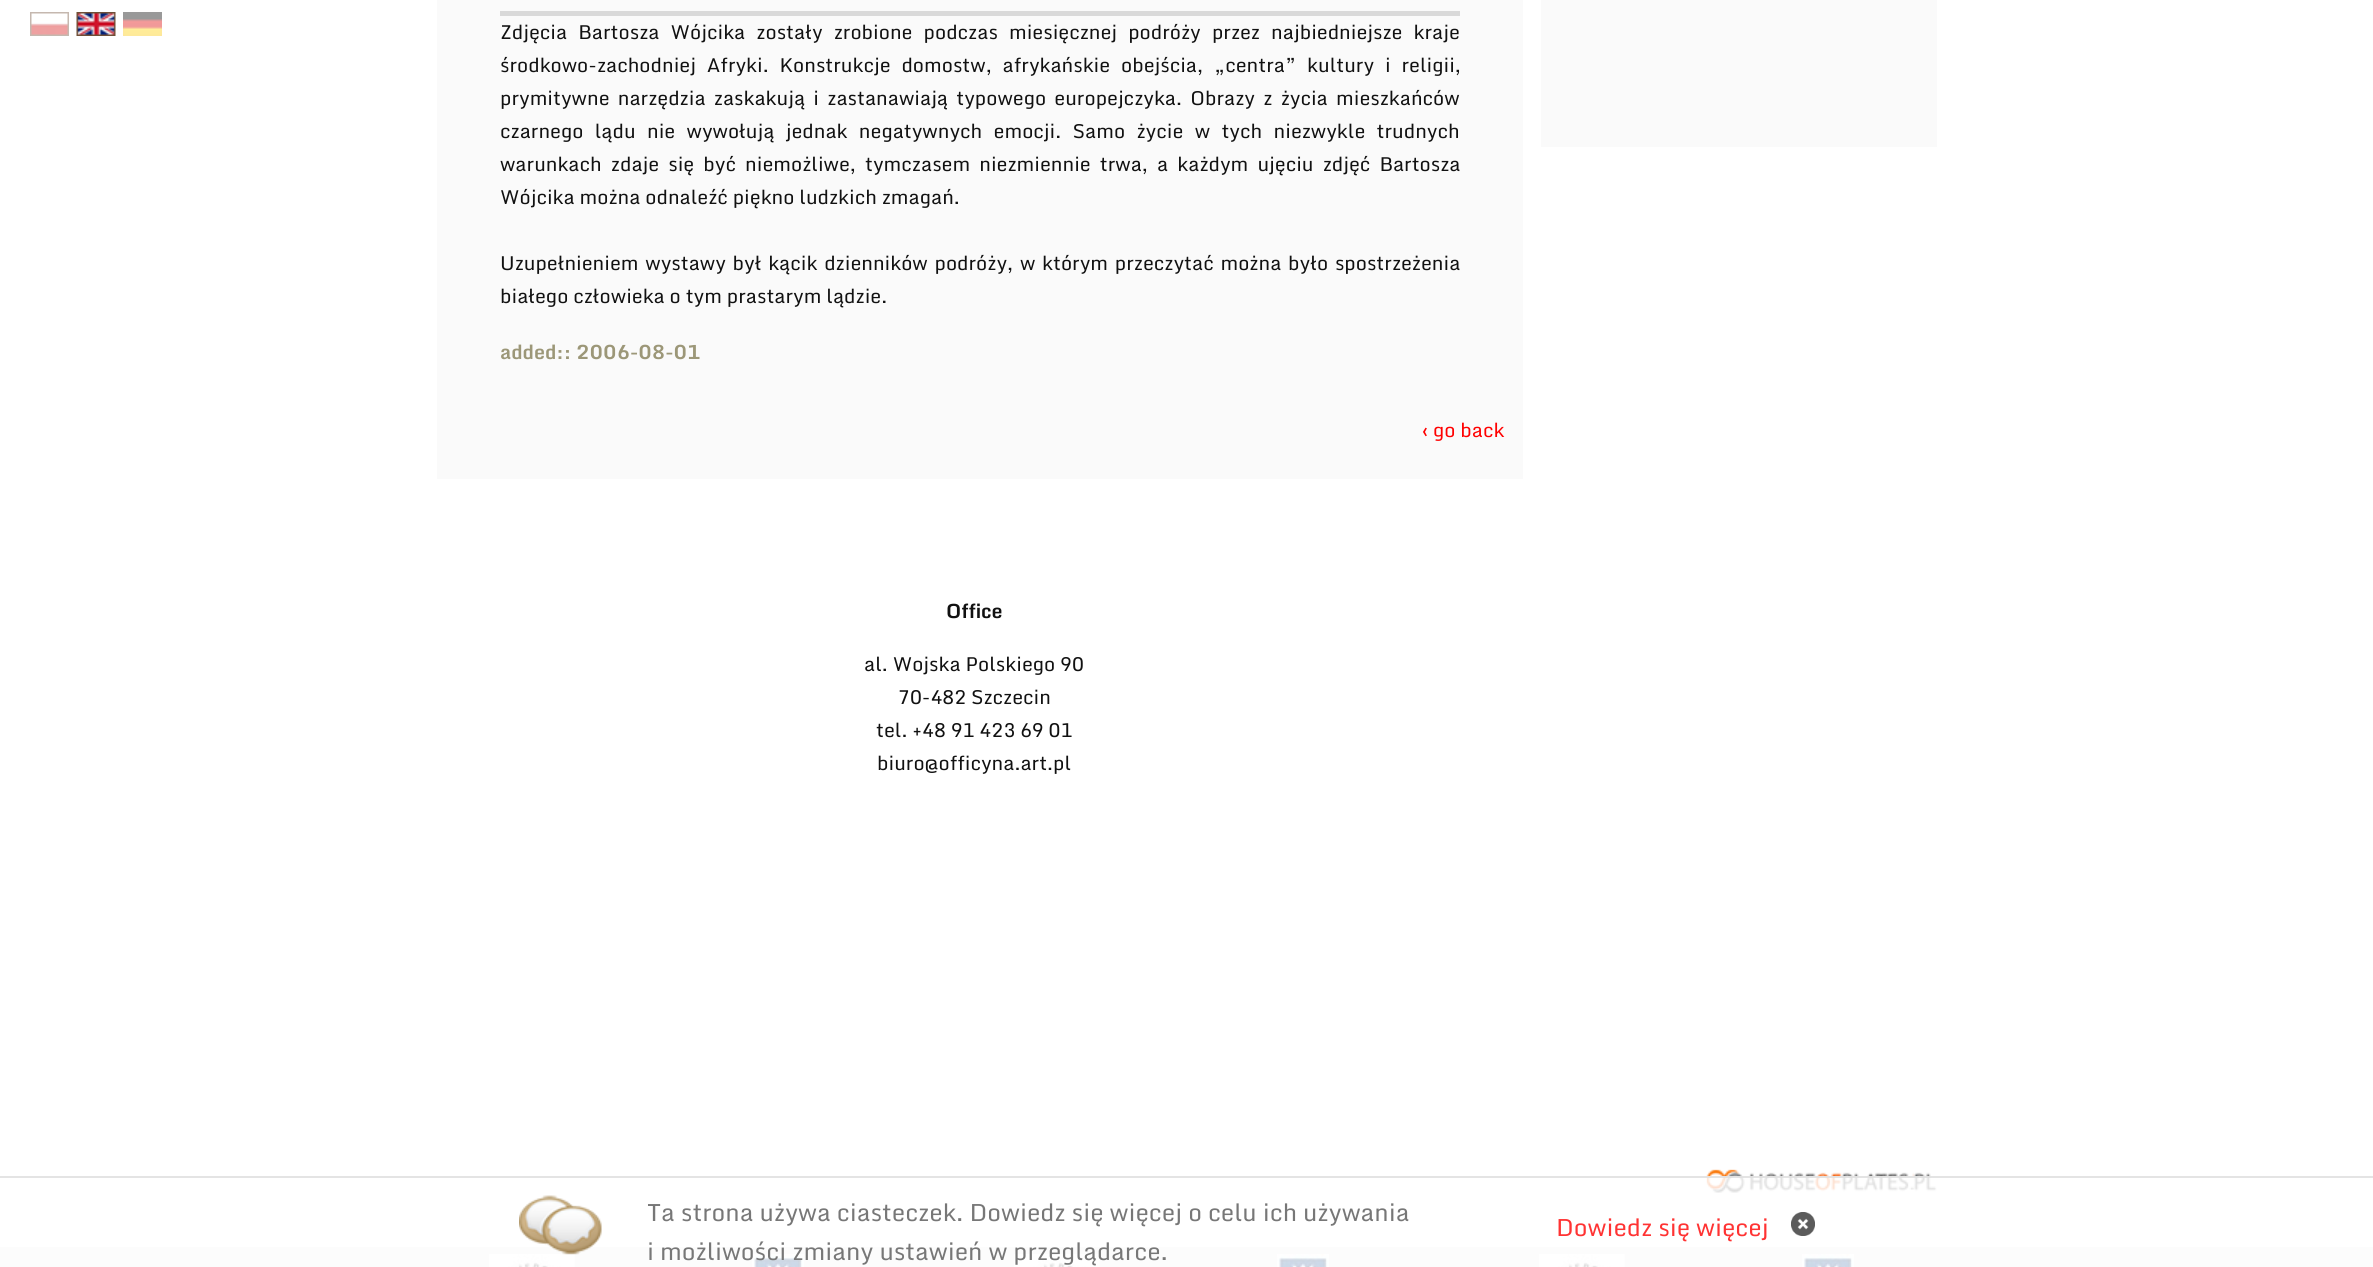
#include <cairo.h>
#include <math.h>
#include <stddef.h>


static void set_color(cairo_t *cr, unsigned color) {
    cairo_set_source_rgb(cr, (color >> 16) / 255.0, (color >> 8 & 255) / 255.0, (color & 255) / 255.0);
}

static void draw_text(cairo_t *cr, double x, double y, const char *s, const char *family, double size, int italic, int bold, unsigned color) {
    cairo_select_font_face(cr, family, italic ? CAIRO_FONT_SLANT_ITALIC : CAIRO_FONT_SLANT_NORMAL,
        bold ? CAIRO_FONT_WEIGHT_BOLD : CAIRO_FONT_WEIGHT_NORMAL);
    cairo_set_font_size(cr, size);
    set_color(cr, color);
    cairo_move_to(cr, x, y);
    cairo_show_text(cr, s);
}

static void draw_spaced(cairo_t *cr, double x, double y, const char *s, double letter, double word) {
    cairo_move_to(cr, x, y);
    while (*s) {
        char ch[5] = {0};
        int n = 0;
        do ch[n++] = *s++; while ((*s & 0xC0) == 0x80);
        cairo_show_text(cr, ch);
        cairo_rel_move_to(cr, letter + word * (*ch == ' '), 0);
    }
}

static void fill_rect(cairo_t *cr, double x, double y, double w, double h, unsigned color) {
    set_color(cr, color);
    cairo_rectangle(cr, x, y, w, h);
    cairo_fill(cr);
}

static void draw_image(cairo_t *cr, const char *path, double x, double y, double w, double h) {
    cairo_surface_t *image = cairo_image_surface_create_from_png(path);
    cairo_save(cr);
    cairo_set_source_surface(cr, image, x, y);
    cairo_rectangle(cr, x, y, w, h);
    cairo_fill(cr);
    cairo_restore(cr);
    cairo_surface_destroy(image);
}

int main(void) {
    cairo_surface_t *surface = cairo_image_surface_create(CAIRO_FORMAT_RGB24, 2373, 1267);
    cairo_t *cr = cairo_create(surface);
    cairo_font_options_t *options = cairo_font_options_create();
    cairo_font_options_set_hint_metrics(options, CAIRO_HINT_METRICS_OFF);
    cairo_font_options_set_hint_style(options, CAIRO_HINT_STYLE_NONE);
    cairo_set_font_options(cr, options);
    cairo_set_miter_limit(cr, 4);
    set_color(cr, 0xFFFFFF);
    cairo_paint(cr);
    draw_image(cr, "assets/img1.png", 30, 12, 39, 24);
    draw_image(cr, "assets/img2.png", 76, 12, 40, 24);
    draw_image(cr, "assets/img3.png", 123, 12, 39, 24);
    fill_rect(cr, 437, 0, 1086, 479, 0xFAFAFA);
    fill_rect(cr, 500, 11, 960, 5, 0xD9D9D9);
    cairo_select_font_face(cr, "Monda", CAIRO_FONT_SLANT_NORMAL, CAIRO_FONT_WEIGHT_NORMAL);
    cairo_set_font_size(cr, 19.5);
    set_color(cr, 0x111111);
    draw_spaced(cr, 500, 39, "Zdjęcia Bartosza Wójcika zostały zrobione podczas miesięcznej podróży przez najbiedniejsze kraje", 0, 6.25);
    draw_spaced(cr, 500, 72, "środkowo-zachodniej Afryki. Konstrukcje domostw, afrykańskie obejścia, „centra” kultury i religii,", 0, 6);
    draw_spaced(cr, 500, 105, "prymitywne narzędzia zaskakują i zastanawiają typowego europejczyka. Obrazy z życia mieszkańców", 0, 3.4);
    draw_spaced(cr, 500, 138, "czarnego lądu nie wywołują jednak negatywnych emocji. Samo życie w tych niezwykle trudnych", 0, 6.5);
    draw_spaced(cr, 500, 171, "warunkach zdaje się być niemożliwe, tymczasem niezmiennie trwa, a każdym ujęciu zdjęć Bartosza", 0, 4.25);
    draw_text(cr, 500, 204, "Wójcika można odnaleźć piękno ludzkich zmagań.", "Monda", 19.5, 0, 0, 0x111111);
    draw_spaced(cr, 500, 270, "Uzupełnieniem wystawy był kącik dzienników podróży, w którym przeczytać można było spostrzeżenia", 0, 1.9);
    draw_text(cr, 500, 303, "białego człowieka o tym prastarym lądzie.", "Monda", 19.5, 0, 0, 0x111111);
    draw_text(cr, 500, 359, "added:: 2006-08-01", "Monda", 19.5, 0, 1, 0x9C9778);
    draw_text(cr, 1422, 437, "‹ go back", "Monda", 19.5, 0, 0, 0xFF0000);
    fill_rect(cr, 1541, 0, 396, 147, 0xFAFAFA);
    draw_text(cr, 946, 618, "Office", "Monda", 19.5, 0, 1, 0x111111);
    draw_text(cr, 864, 671, "al. Wojska Polskiego 90", "Monda", 19.5, 0, 0, 0x111111);
    draw_text(cr, 898, 704, "70-482 Szczecin", "Monda", 19.5, 0, 0, 0x111111);
    draw_text(cr, 876, 737, "tel. +48 91 423 69 01", "Monda", 19.5, 0, 0, 0x111111);
    draw_text(cr, 877, 770, "biuro@officyna.art.pl", "Monda", 19.5, 0, 0, 0x111111);
    draw_image(cr, "assets/img4.png", 1706, 1169, 231, 24);
    fill_rect(cr, 0, 1247, 2373, 20, 0xF1F1F0);
    draw_image(cr, "assets/img5.png", 489, 1254, 86, 13);
    draw_image(cr, "assets/img6.png", 752, 1254, 52, 13);
    draw_image(cr, "assets/img5.png", 1014, 1254, 86, 13);
    draw_image(cr, "assets/img7.png", 1277, 1254, 52, 13);
    draw_image(cr, "assets/img5.png", 1539, 1254, 86, 13);
    draw_image(cr, "assets/img8.png", 1802, 1254, 52, 13);
    cairo_set_source_rgba(cr, 1, 1, 1, 0.8);
    cairo_rectangle(cr, 0, 1176, 2373, 91);
    cairo_fill(cr);
    cairo_set_source_rgba(cr, 0.867, 0.867, 0.867, 0.8);
    cairo_rectangle(cr, 0, 1176, 2373, 2);
    cairo_fill(cr);
    draw_image(cr, "assets/img9.png", 519, 1195, 83, 60);
    draw_text(cr, 647, 1221, "Ta strona używa ciasteczek. Dowiedz się więcej o celu ich używania", "Monda", 24, 0, 0, 0x777777);
    draw_text(cr, 1556, 1236, "Dowiedz się więcej", "Monda", 24, 0, 0, 0xFF3333);
    draw_image(cr, "assets/img10.png", 1791, 1212, 24, 24);
    draw_text(cr, 647, 1260, "i możliwości zmiany ustawień w przeglądarce.", "Monda", 24, 0, 0, 0x777777);
    cairo_surface_write_to_png(surface, "output.png");
    cairo_font_options_destroy(options);
    cairo_destroy(cr);
    cairo_surface_destroy(surface);
    return 0;
}
